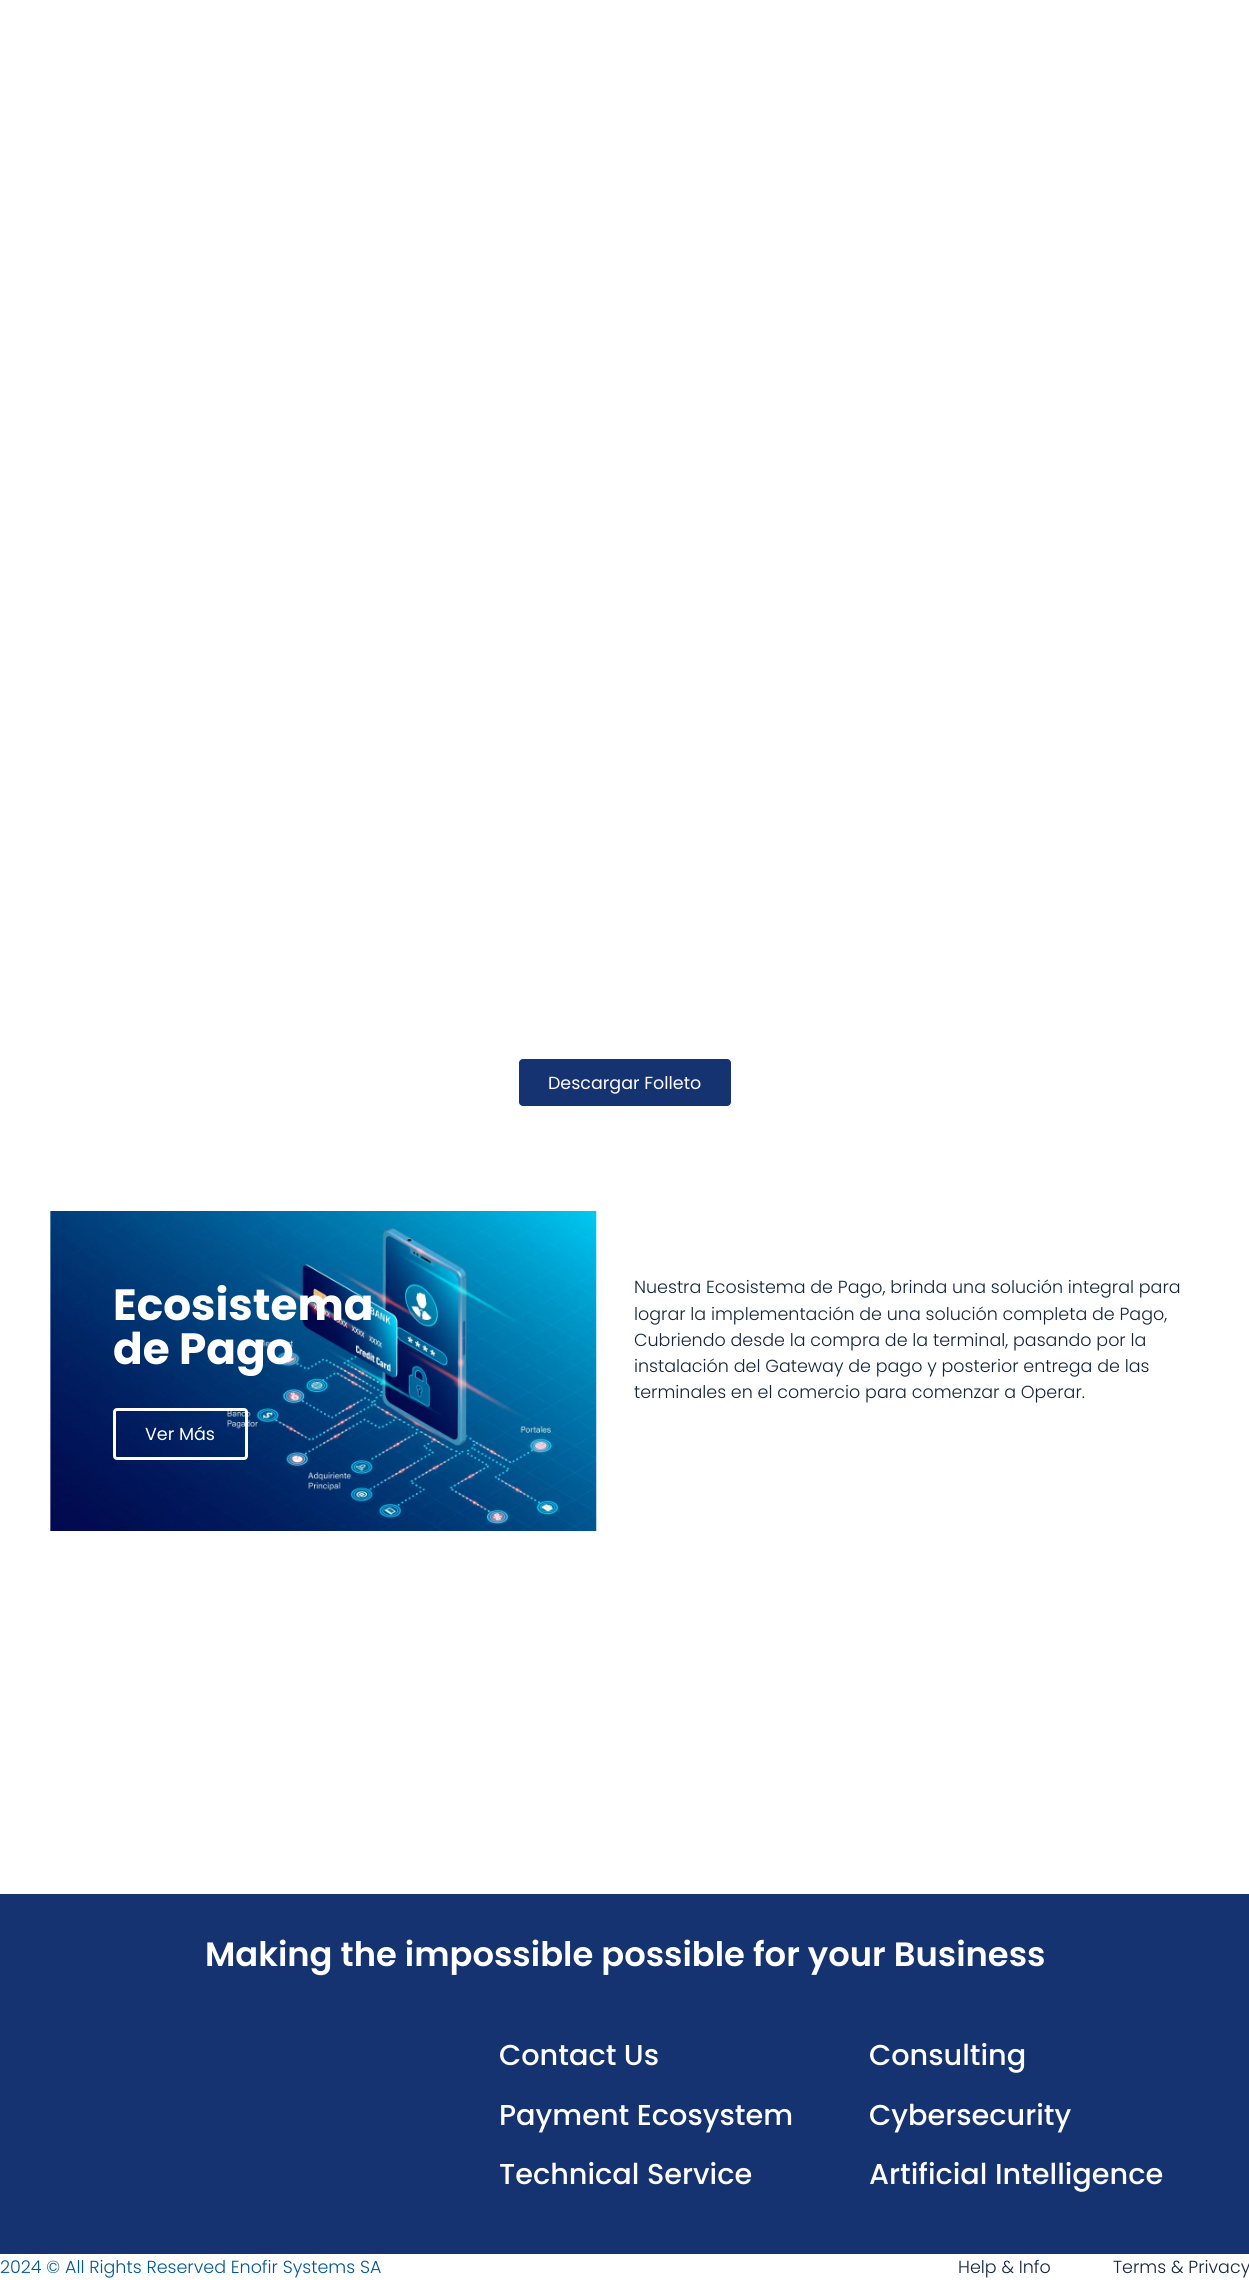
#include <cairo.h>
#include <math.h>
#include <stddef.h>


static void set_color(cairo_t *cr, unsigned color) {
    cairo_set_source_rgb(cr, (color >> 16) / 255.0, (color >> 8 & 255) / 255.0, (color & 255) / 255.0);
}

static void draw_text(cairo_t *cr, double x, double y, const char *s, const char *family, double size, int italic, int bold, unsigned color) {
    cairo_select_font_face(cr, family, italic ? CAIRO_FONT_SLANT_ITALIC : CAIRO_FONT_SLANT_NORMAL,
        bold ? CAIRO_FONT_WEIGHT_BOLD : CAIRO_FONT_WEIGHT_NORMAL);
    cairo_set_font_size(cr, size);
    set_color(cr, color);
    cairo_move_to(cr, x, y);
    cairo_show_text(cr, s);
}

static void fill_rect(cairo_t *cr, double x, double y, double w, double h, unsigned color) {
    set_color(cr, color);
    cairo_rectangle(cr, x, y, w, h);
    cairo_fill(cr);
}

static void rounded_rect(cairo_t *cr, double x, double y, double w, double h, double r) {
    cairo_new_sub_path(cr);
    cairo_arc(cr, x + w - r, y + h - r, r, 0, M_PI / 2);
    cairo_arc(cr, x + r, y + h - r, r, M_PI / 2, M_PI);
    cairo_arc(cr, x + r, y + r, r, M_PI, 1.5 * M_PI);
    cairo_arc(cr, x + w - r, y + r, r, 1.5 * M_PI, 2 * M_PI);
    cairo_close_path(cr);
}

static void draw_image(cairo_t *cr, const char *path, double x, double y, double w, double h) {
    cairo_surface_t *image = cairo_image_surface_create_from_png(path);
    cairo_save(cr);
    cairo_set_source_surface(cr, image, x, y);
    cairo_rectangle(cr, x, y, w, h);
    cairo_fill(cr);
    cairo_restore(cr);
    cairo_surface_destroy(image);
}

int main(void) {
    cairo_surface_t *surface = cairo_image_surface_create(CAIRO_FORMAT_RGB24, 1249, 2280);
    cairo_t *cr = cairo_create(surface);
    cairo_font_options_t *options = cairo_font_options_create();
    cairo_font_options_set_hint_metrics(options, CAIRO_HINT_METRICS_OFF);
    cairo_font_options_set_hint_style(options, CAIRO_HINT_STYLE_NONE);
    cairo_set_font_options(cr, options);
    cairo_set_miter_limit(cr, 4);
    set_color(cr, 0xFFFFFF);
    cairo_paint(cr);
    set_color(cr, 0x153271);
    rounded_rect(cr, 519, 1059, 212, 47, 4);
    cairo_fill(cr);
    draw_text(cr, 548, 1089, "Descargar Folleto", "Poppins", 17.5, 0, 0, 0xFFFFFF);
    draw_image(cr, "assets/img1.png", 50, 1211, 547, 320);
    draw_text(cr, 113, 1320, "Ecosistema", "Poppins", 43.75, 0, 1, 0xFFFFFF);
    draw_text(cr, 113, 1364, "de Pago", "Poppins", 43.75, 0, 1, 0xFFFFFF);
    rounded_rect(cr, 114.5, 1409.5, 132, 49, 2.5);
    cairo_set_line_width(cr, 3);
    cairo_stroke(cr);
    draw_text(cr, 145, 1440, "Ver Más", "Poppins", 17.5, 0, 0, 0xFFFFFF);
    draw_text(cr, 634, 1293, "Nuestra Ecosistema de Pago, brinda una solución integral para", "Poppins Light", 17.5, 0, 0, 0x13243C);
    draw_text(cr, 634, 1320, "lograr la implementación de una solución completa de Pago,", "Poppins Light", 17.5, 0, 0, 0x13243C);
    draw_text(cr, 634, 1346, "Cubriendo desde la compra de la terminal, pasando por la", "Poppins Light", 17.5, 0, 0, 0x13243C);
    draw_text(cr, 634, 1372, "instalación del Gateway de pago y posterior entrega de las", "Poppins Light", 17.5, 0, 0, 0x13243C);
    draw_text(cr, 634, 1398, "terminales en el comercio para comenzar a Operar.", "Poppins Light", 17.5, 0, 0, 0x13243C);
    fill_rect(cr, 0, 1894, 1249, 360, 0x153271);
    draw_text(cr, 205, 1966, "Making the impossible possible for your Business", "Poppins SemiBold", 33.75, 0, 0, 0xFFFFFF);
    draw_text(cr, 499, 2065, "Contact Us", "Poppins Medium", 28.75, 0, 0, 0xFFFFFF);
    draw_text(cr, 499, 2125, "Payment Ecosystem", "Poppins Medium", 28.75, 0, 0, 0xFFFFFF);
    draw_text(cr, 499, 2184, "Technical Service", "Poppins Medium", 28.75, 0, 0, 0xFFFFFF);
    draw_text(cr, 869, 2065, "Consulting", "Poppins Medium", 28.75, 0, 0, 0xFFFFFF);
    draw_text(cr, 869, 2125, "Cybersecurity", "Poppins Medium", 28.75, 0, 0, 0xFFFFFF);
    draw_text(cr, 869, 2184, "Artificial Intelligence", "Poppins Medium", 28.75, 0, 0, 0xFFFFFF);
    draw_text(cr, 0, 2273, "2024 © All Rights Reserved Enofir Systems SA", "Poppins Light", 17.5, 0, 0, 0x005891);
    draw_text(cr, 958, 2273, "Help & Info", "Poppins Light", 17.5, 0, 0, 0x13243C);
    draw_text(cr, 1113, 2273, "Terms & Privacy", "Poppins Light", 17.5, 0, 0, 0x13243C);
    cairo_surface_write_to_png(surface, "output.png");
    cairo_font_options_destroy(options);
    cairo_destroy(cr);
    cairo_surface_destroy(surface);
    return 0;
}
